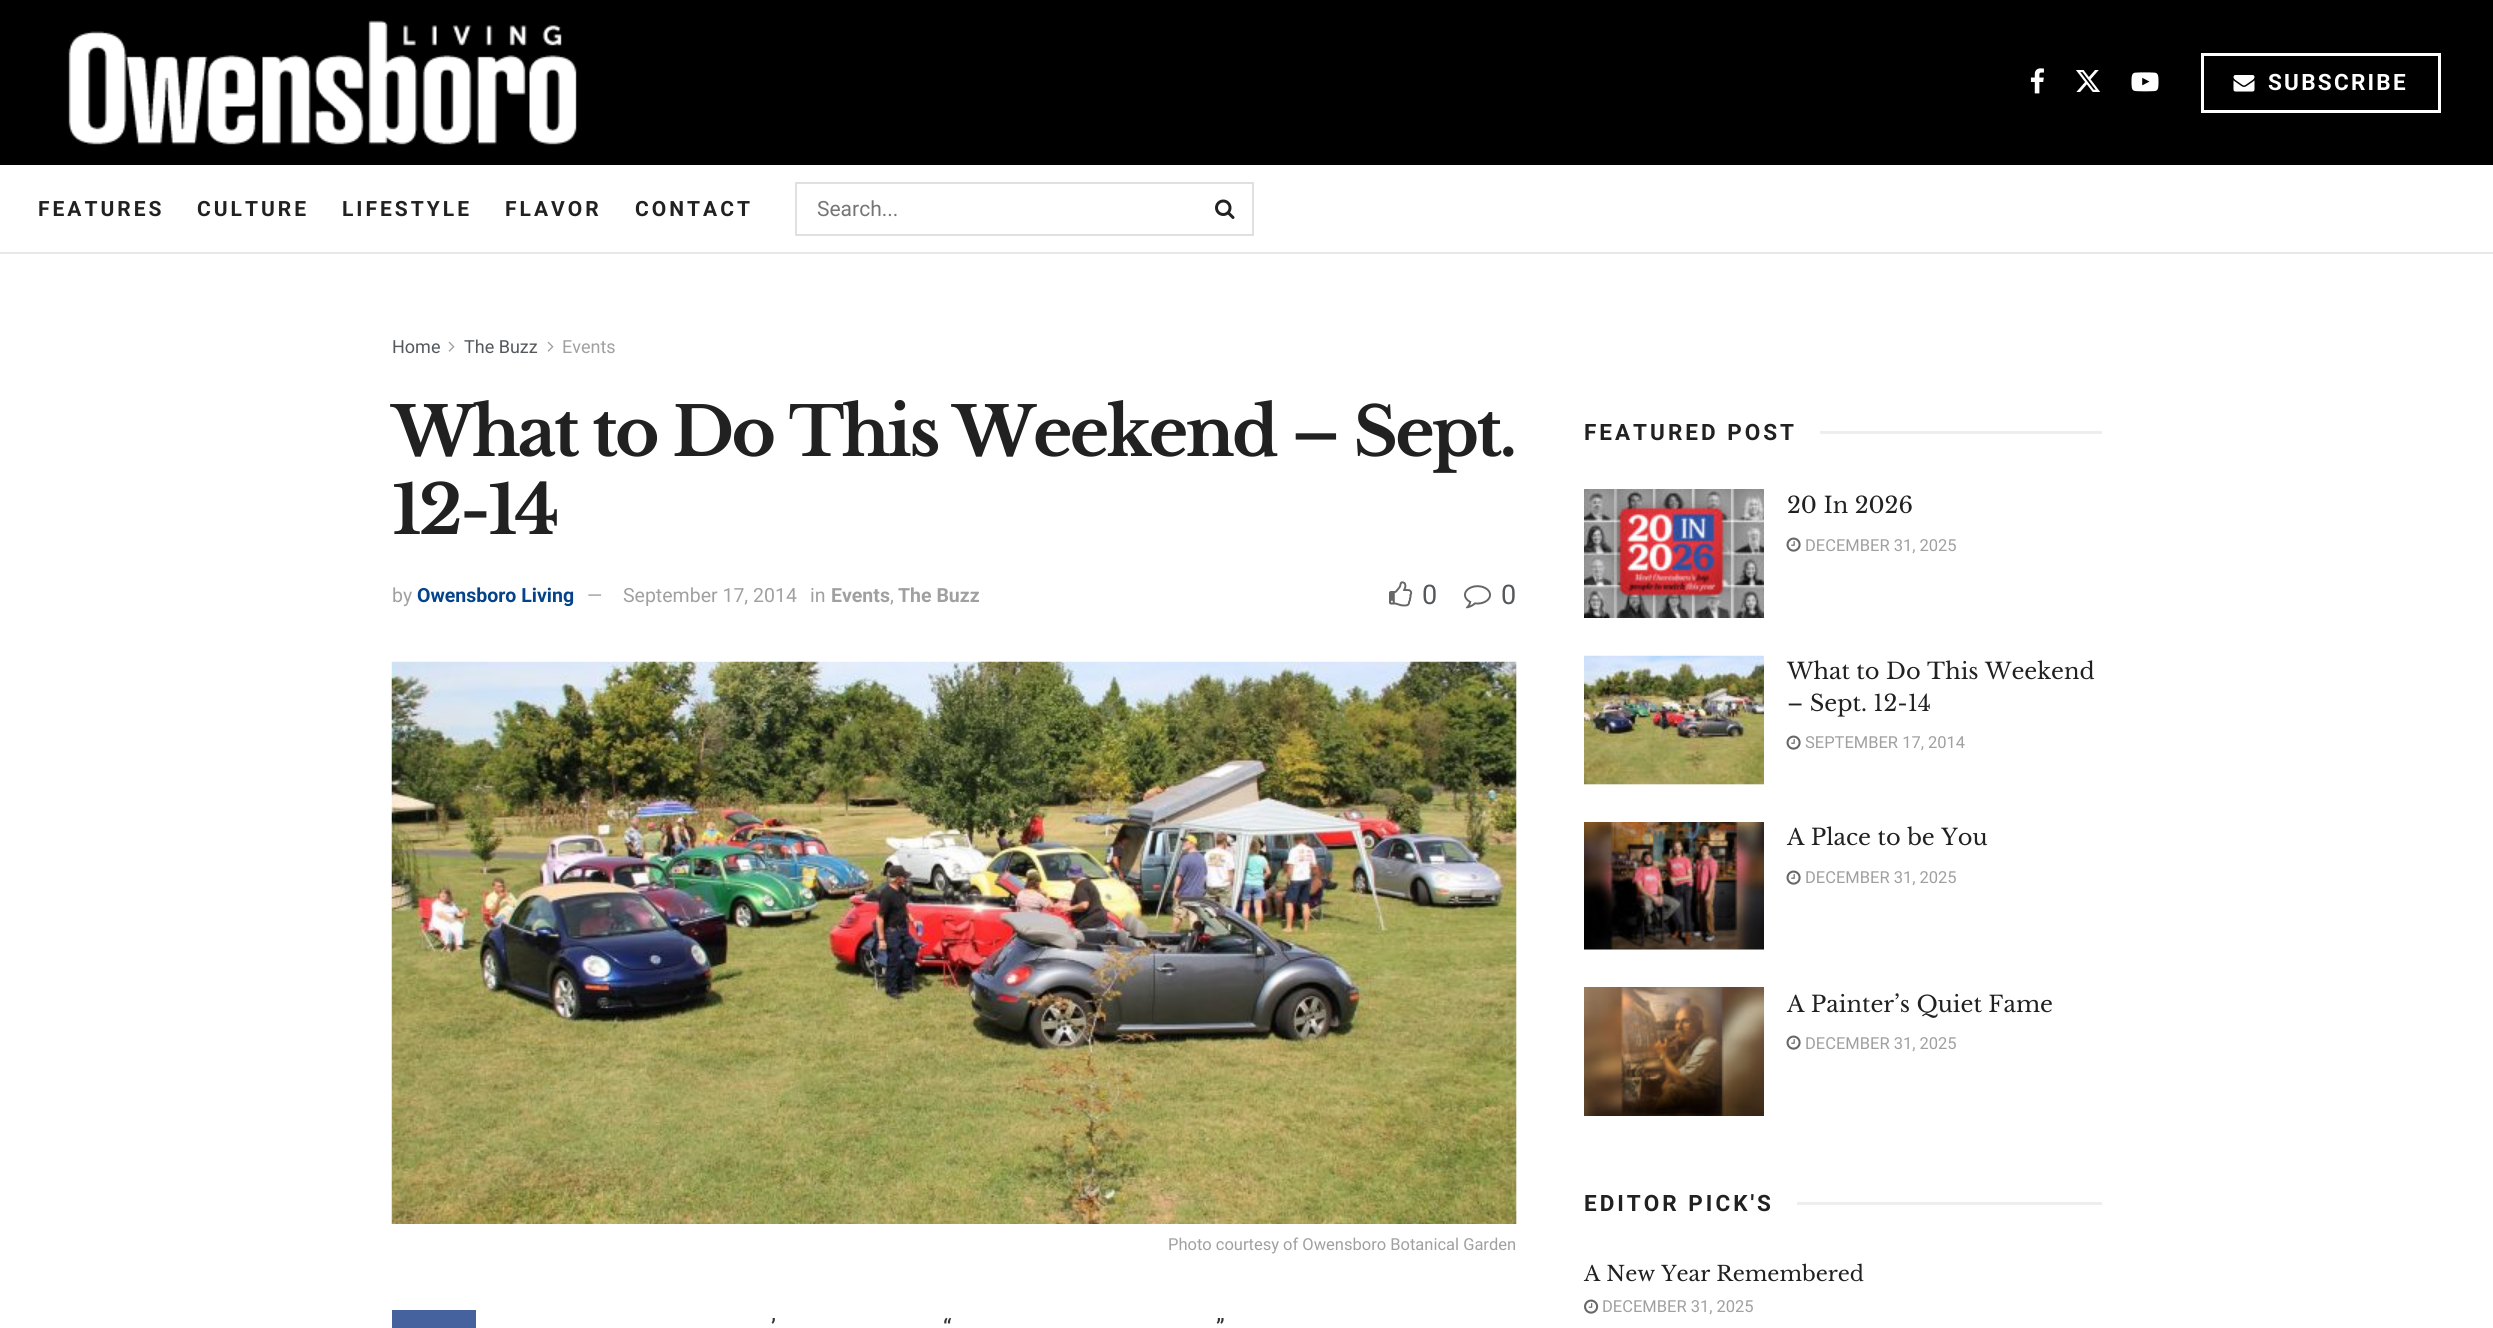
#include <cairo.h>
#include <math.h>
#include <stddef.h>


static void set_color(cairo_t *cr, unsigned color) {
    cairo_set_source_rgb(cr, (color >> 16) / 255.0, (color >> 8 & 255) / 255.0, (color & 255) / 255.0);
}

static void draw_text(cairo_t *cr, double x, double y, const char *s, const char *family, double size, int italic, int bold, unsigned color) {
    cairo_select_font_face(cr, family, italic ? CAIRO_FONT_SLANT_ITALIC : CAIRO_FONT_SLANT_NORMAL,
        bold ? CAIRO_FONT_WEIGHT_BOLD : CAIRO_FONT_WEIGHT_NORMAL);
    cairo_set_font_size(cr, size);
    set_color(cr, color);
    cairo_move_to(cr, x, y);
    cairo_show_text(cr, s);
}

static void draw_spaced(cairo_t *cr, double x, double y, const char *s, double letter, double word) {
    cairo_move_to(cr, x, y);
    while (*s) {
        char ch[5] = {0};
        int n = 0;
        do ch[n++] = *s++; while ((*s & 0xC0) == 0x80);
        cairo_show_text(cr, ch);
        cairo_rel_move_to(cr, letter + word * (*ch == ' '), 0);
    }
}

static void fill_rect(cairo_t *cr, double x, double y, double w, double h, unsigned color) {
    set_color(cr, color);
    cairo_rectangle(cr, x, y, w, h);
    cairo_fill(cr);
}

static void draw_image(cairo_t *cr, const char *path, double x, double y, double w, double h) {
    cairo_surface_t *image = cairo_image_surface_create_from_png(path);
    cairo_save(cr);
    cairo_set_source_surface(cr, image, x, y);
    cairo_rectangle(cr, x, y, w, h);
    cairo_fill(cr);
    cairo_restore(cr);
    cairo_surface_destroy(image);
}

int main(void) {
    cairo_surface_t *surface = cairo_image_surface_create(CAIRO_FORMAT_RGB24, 2493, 1328);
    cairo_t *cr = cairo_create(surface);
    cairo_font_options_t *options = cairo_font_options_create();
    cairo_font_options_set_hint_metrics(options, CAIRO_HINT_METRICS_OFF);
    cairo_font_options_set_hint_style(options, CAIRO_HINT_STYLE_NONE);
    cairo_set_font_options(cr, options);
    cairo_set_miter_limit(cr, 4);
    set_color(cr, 0xFFFFFF);
    cairo_paint(cr);
    fill_rect(cr, 0, 0, 2493, 165, 0x000000);
    draw_image(cr, "assets/img1.png", 68, 20, 509, 125);
    draw_image(cr, "assets/img2.png", 2030, 68, 14, 26);
    draw_image(cr, "assets/img3.png", 2076, 70, 25, 22);
    draw_image(cr, "assets/img4.png", 2131, 72, 28, 20);
    cairo_rectangle(cr, 2202.5, 54.5, 237, 57);
    set_color(cr, 0xFFFFFF);
    cairo_set_line_width(cr, 3);
    cairo_stroke(cr);
    draw_image(cr, "assets/img5.png", 2233, 75, 22, 17);
    cairo_select_font_face(cr, "Roboto", CAIRO_FONT_SLANT_NORMAL, CAIRO_FONT_WEIGHT_BOLD);
    cairo_set_font_size(cr, 22.5);
    draw_spaced(cr, 2268, 90, "SUBSCRIBE", 2.25, 0);
    fill_rect(cr, 0, 252, 2493, 2, 0xE8E8E8);
    cairo_set_font_size(cr, 21);
    set_color(cr, 0x212121);
    draw_spaced(cr, 38, 216, "FEATURES", 3, 0);
    draw_spaced(cr, 197, 216, "CULTURE", 3, 0);
    draw_spaced(cr, 342, 216, "LIFESTYLE", 3, 0);
    draw_spaced(cr, 505, 216, "FLAVOR", 3, 0);
    draw_spaced(cr, 635, 216, "CONTACT", 3, 0);
    cairo_rectangle(cr, 796, 183, 457, 52);
    set_color(cr, 0xE0E0E0);
    cairo_set_line_width(cr, 2);
    cairo_stroke(cr);
    draw_text(cr, 817, 216, "Search...", "Roboto", 21, 0, 0, 0x757575);
    draw_image(cr, "assets/img6.png", 1215, 199, 20, 20);
    draw_text(cr, 392, 353, "Home", "Roboto", 18, 0, 0, 0x53585C);
    draw_image(cr, "assets/img7.png", 448, 341, 7, 11);
    draw_text(cr, 464, 353, "The Buzz", "Roboto", 18, 0, 0, 0x53585C);
    draw_image(cr, "assets/img7.png", 547, 341, 7, 11);
    draw_text(cr, 562, 353, "Events", "Roboto", 18, 0, 0, 0xA0A0A0);
    cairo_select_font_face(cr, "Libre Baskerville", CAIRO_FONT_SLANT_NORMAL, CAIRO_FONT_WEIGHT_BOLD);
    cairo_set_font_size(cr, 67.5);
    set_color(cr, 0x212121);
    draw_spaced(cr, 392, 456, "What to Do This Weekend – Sept.", -2.7, 0);
    draw_spaced(cr, 392, 534, "12-14", -2.7, 0);
    draw_text(cr, 392, 602, "by", "Roboto", 19.5, 0, 0, 0xA0A0A0);
    draw_text(cr, 417, 602, "Owensboro Living", "Roboto", 19.5, 0, 1, 0x044389);
    draw_text(cr, 587, 602, "—", "Roboto", 19.5, 0, 0, 0xA0A0A0);
    draw_text(cr, 623, 602, "September 17, 2014", "Roboto", 19.5, 0, 0, 0xA0A0A0);
    draw_text(cr, 810, 602, "in", "Roboto", 19.5, 0, 0, 0xA0A0A0);
    draw_text(cr, 831, 602, "Events", "Roboto", 19.5, 0, 1, 0xA0A0A0);
    draw_text(cr, 890, 602, ",", "Roboto", 19.5, 0, 0, 0xA0A0A0);
    draw_text(cr, 898, 602, "The Buzz", "Roboto", 19.5, 0, 1, 0xA0A0A0);
    draw_image(cr, "assets/img8.png", 1389, 581, 24, 26);
    draw_text(cr, 1422, 604, "0", "Roboto", 27, 0, 0, 0x53585C);
    draw_image(cr, "assets/img9.png", 1464, 585, 27, 24);
    draw_text(cr, 1501, 604, "0", "Roboto", 27, 0, 0, 0x53585C);
    fill_rect(cr, 1516, 662, 1, 562, 0xF7F7F7);
    draw_image(cr, "assets/img10.png", 391, 661, 1126, 563);
    draw_text(cr, 1168, 1250, "Photo courtesy of Owensboro Botanical Garden", "Roboto", 16.5, 0, 0, 0xA0A0A0);
    fill_rect(cr, 392, 1310, 84, 18, 0x45629F);
    draw_text(cr, 771, 1336, "’", "Roboto", 24, 0, 0, 0x333333);
    draw_text(cr, 943, 1336, "“", "Roboto", 24, 0, 0, 0x333333);
    draw_text(cr, 1216, 1336, "”", "Roboto", 24, 0, 0, 0x333333);
    cairo_select_font_face(cr, "Roboto", CAIRO_FONT_SLANT_NORMAL, CAIRO_FONT_WEIGHT_BOLD);
    cairo_set_font_size(cr, 22.5);
    set_color(cr, 0x212121);
    draw_spaced(cr, 1584, 440, "FEATURED POST", 3, 0);
    fill_rect(cr, 1820, 431, 282, 3, 0xEEEEEE);
    draw_image(cr, "assets/img11.png", 1584, 489, 180, 129);
    draw_text(cr, 1787, 513, "20 In 2026", "Libre Baskerville", 22.5, 0, 0, 0x212121);
    draw_image(cr, "assets/img12.png", 1786, 537, 15, 15);
    draw_text(cr, 1805, 551, "DECEMBER 31, 2025", "Roboto", 16.5, 0, 0, 0xA0A0A0);
    fill_rect(cr, 1584, 784, 180, 1, 0xF7F7F7);
    draw_image(cr, "assets/img13.png", 1584, 655, 180, 130);
    draw_text(cr, 1787, 679, "What to Do This Weekend", "Libre Baskerville", 22.5, 0, 0, 0x212121);
    draw_text(cr, 1787, 711, "– Sept. 12-14", "Libre Baskerville", 22.5, 0, 0, 0x212121);
    draw_image(cr, "assets/img12.png", 1786, 735, 15, 15);
    draw_text(cr, 1805, 748, "SEPTEMBER 17, 2014", "Roboto", 16.5, 0, 0, 0xA0A0A0);
    fill_rect(cr, 1584, 949, 180, 1, 0xF7F7F7);
    draw_image(cr, "assets/img14.png", 1584, 822, 180, 128);
    draw_text(cr, 1787, 845, "A Place to be You", "Libre Baskerville", 22.5, 0, 0, 0x212121);
    draw_image(cr, "assets/img12.png", 1786, 870, 15, 15);
    draw_text(cr, 1805, 883, "DECEMBER 31, 2025", "Roboto", 16.5, 0, 0, 0xA0A0A0);
    draw_image(cr, "assets/img15.png", 1584, 987, 180, 129);
    draw_text(cr, 1787, 1012, "A Painter’s Quiet Fame", "Libre Baskerville", 22.5, 0, 0, 0x212121);
    draw_image(cr, "assets/img12.png", 1786, 1035, 15, 15);
    draw_text(cr, 1805, 1049, "DECEMBER 31, 2025", "Roboto", 16.5, 0, 0, 0xA0A0A0);
    cairo_select_font_face(cr, "Roboto", CAIRO_FONT_SLANT_NORMAL, CAIRO_FONT_WEIGHT_BOLD);
    cairo_set_font_size(cr, 22.5);
    set_color(cr, 0x212121);
    draw_spaced(cr, 1584, 1211, "EDITOR PICK'S", 3, 0);
    fill_rect(cr, 1797, 1202, 305, 3, 0xEEEEEE);
    draw_text(cr, 1584, 1281, "A New Year Remembered", "Libre Baskerville", 21, 0, 0, 0x212121);
    draw_image(cr, "assets/img16.png", 1584, 1299, 15, 15);
    draw_text(cr, 1602, 1312, "DECEMBER 31, 2025", "Roboto", 16.5, 0, 0, 0xA0A0A0);
    cairo_surface_write_to_png(surface, "output.png");
    cairo_font_options_destroy(options);
    cairo_destroy(cr);
    cairo_surface_destroy(surface);
    return 0;
}
